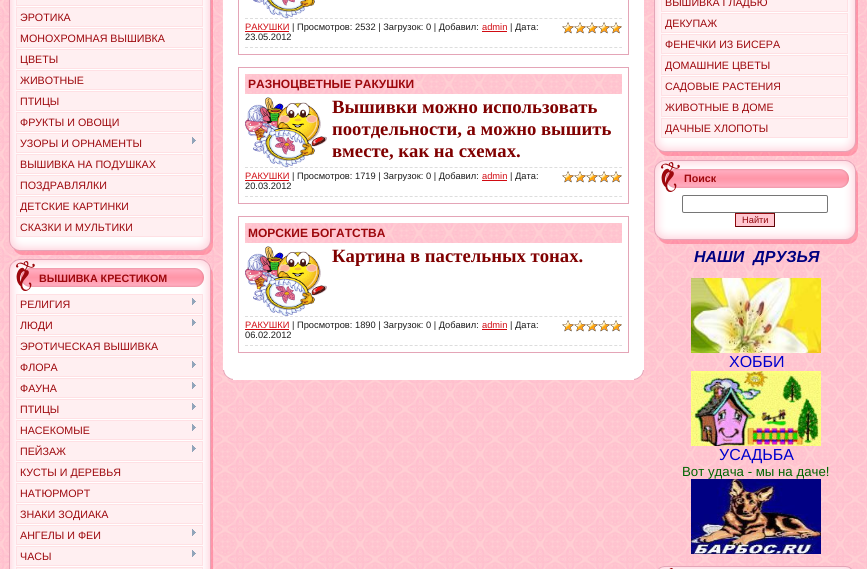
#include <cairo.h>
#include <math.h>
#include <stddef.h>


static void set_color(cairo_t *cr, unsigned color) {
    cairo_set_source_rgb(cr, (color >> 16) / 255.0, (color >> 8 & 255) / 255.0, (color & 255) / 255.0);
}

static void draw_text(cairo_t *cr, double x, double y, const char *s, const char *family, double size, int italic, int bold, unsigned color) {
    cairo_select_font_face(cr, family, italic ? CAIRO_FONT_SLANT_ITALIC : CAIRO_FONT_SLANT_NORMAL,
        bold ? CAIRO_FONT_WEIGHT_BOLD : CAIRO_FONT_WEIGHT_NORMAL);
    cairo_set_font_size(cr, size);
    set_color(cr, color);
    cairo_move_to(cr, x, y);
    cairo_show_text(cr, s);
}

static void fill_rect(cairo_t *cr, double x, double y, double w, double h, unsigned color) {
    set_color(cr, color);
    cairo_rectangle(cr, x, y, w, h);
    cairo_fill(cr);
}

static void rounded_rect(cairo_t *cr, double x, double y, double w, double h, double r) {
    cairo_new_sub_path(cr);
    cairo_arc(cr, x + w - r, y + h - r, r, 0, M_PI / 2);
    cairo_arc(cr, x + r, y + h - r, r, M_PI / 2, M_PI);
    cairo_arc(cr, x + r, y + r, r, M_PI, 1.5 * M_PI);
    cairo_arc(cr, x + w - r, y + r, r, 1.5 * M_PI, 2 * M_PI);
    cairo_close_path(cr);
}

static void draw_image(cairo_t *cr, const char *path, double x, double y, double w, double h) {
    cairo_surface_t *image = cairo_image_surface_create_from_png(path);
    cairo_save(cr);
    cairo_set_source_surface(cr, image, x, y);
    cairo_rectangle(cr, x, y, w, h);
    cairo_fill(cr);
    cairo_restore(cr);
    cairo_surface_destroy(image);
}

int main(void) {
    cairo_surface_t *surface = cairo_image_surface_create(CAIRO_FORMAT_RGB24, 867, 569);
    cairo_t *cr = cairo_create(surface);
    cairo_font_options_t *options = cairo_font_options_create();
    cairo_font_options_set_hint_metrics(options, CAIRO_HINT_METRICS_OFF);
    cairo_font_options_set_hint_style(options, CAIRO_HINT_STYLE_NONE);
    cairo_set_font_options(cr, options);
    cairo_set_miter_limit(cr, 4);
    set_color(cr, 0xFFFFFF);
    cairo_paint(cr);
    draw_image(cr, "assets/img1.png", 0, 0, 867, 569);
    draw_image(cr, "assets/img2.png", 9, 0, 204, 238);
    set_color(cr, 0xFFEFF1);
    cairo_rectangle(cr, 16.5, -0.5, 186, 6);
    cairo_fill_preserve(cr);
    set_color(cr, 0xFFE0E4);
    cairo_set_line_width(cr, 1);
    cairo_stroke(cr);
    set_color(cr, 0xFFEFF1);
    cairo_rectangle(cr, 16.5, 7.5, 186, 19);
    cairo_fill_preserve(cr);
    set_color(cr, 0xFFE0E4);
    cairo_stroke(cr);
    draw_text(cr, 20, 21, "ЭРОТИКА", "Liberation Sans", 10.7, 0, 0, 0x9D080D);
    set_color(cr, 0xFFEFF1);
    cairo_rectangle(cr, 16.5, 28.5, 186, 19);
    cairo_fill_preserve(cr);
    set_color(cr, 0xFFE0E4);
    cairo_stroke(cr);
    draw_text(cr, 20, 42, "МОНОХРОМНАЯ ВЫШИВКА", "Liberation Sans", 10.7, 0, 0, 0x9D080D);
    set_color(cr, 0xFFEFF1);
    cairo_rectangle(cr, 16.5, 49.5, 186, 19);
    cairo_fill_preserve(cr);
    set_color(cr, 0xFFE0E4);
    cairo_stroke(cr);
    draw_text(cr, 20, 63, "ЦВЕТЫ", "Liberation Sans", 10.7, 0, 0, 0x9D080D);
    set_color(cr, 0xFFEFF1);
    cairo_rectangle(cr, 16.5, 70.5, 186, 19);
    cairo_fill_preserve(cr);
    set_color(cr, 0xFFE0E4);
    cairo_stroke(cr);
    draw_text(cr, 20, 84, "ЖИВОТНЫЕ", "Liberation Sans", 10.7, 0, 0, 0x9D080D);
    set_color(cr, 0xFFEFF1);
    cairo_rectangle(cr, 16.5, 91.5, 186, 19);
    cairo_fill_preserve(cr);
    set_color(cr, 0xFFE0E4);
    cairo_stroke(cr);
    draw_text(cr, 20, 105, "ПТИЦЫ", "Liberation Sans", 10.7, 0, 0, 0x9D080D);
    set_color(cr, 0xFFEFF1);
    cairo_rectangle(cr, 16.5, 112.5, 186, 19);
    cairo_fill_preserve(cr);
    set_color(cr, 0xFFE0E4);
    cairo_stroke(cr);
    draw_text(cr, 20, 126, "ФРУКТЫ И ОВОЩИ", "Liberation Sans", 10.7, 0, 0, 0x9D080D);
    set_color(cr, 0xFFEFF1);
    cairo_rectangle(cr, 16.5, 133.5, 186, 19);
    cairo_fill_preserve(cr);
    set_color(cr, 0xFFE0E4);
    cairo_stroke(cr);
    draw_text(cr, 20, 147, "УЗОРЫ И ОРНАМЕНТЫ", "Liberation Sans", 10.7, 0, 0, 0x9D080D);
    draw_image(cr, "assets/img3.png", 192, 137, 4, 7);
    set_color(cr, 0xFFEFF1);
    cairo_rectangle(cr, 16.5, 154.5, 186, 19);
    cairo_fill_preserve(cr);
    set_color(cr, 0xFFE0E4);
    cairo_stroke(cr);
    draw_text(cr, 20, 168, "ВЫШИВКА НА ПОДУШКАХ", "Liberation Sans", 10.7, 0, 0, 0x9D080D);
    set_color(cr, 0xFFEFF1);
    cairo_rectangle(cr, 16.5, 175.5, 186, 19);
    cairo_fill_preserve(cr);
    set_color(cr, 0xFFE0E4);
    cairo_stroke(cr);
    draw_text(cr, 20, 189, "ПОЗДРАВЛЯЛКИ", "Liberation Sans", 10.7, 0, 0, 0x9D080D);
    set_color(cr, 0xFFEFF1);
    cairo_rectangle(cr, 16.5, 196.5, 186, 19);
    cairo_fill_preserve(cr);
    set_color(cr, 0xFFE0E4);
    cairo_stroke(cr);
    draw_text(cr, 20, 210, "ДЕТСКИЕ КАРТИНКИ", "Liberation Sans", 10.7, 0, 0, 0x9D080D);
    set_color(cr, 0xFFEFF1);
    cairo_rectangle(cr, 16.5, 217.5, 186, 19);
    cairo_fill_preserve(cr);
    set_color(cr, 0xFFE0E4);
    cairo_stroke(cr);
    draw_text(cr, 20, 231, "СКАЗКИ И МУЛЬТИКИ", "Liberation Sans", 10.7, 0, 0, 0x9D080D);
    draw_image(cr, "assets/img4.png", 9, 238, 204, 17);
    draw_image(cr, "assets/img5.png", 9, 259, 204, 32);
    draw_text(cr, 39, 282, "ВЫШИВКА КРЕСТИКОМ", "Liberation Sans", 10.7, 0, 1, 0x9D080D);
    draw_image(cr, "assets/img6.png", 9, 291, 204, 278);
    set_color(cr, 0xFFEFF1);
    cairo_rectangle(cr, 16.5, 294.5, 186, 19);
    cairo_fill_preserve(cr);
    set_color(cr, 0xFFE0E4);
    cairo_stroke(cr);
    draw_text(cr, 20, 308, "РЕЛИГИЯ", "Liberation Sans", 10.7, 0, 0, 0x9D080D);
    draw_image(cr, "assets/img3.png", 192, 298, 4, 7);
    set_color(cr, 0xFFEFF1);
    cairo_rectangle(cr, 16.5, 315.5, 186, 19);
    cairo_fill_preserve(cr);
    set_color(cr, 0xFFE0E4);
    cairo_stroke(cr);
    draw_text(cr, 20, 329, "ЛЮДИ", "Liberation Sans", 10.7, 0, 0, 0x9D080D);
    draw_image(cr, "assets/img3.png", 192, 319, 4, 7);
    set_color(cr, 0xFFEFF1);
    cairo_rectangle(cr, 16.5, 336.5, 186, 19);
    cairo_fill_preserve(cr);
    set_color(cr, 0xFFE0E4);
    cairo_stroke(cr);
    draw_text(cr, 20, 350, "ЭРОТИЧЕСКАЯ ВЫШИВКА", "Liberation Sans", 10.7, 0, 0, 0x9D080D);
    set_color(cr, 0xFFEFF1);
    cairo_rectangle(cr, 16.5, 357.5, 186, 19);
    cairo_fill_preserve(cr);
    set_color(cr, 0xFFE0E4);
    cairo_stroke(cr);
    draw_text(cr, 20, 371, "ФЛОРА", "Liberation Sans", 10.7, 0, 0, 0x9D080D);
    draw_image(cr, "assets/img3.png", 192, 361, 4, 7);
    set_color(cr, 0xFFEFF1);
    cairo_rectangle(cr, 16.5, 378.5, 186, 19);
    cairo_fill_preserve(cr);
    set_color(cr, 0xFFE0E4);
    cairo_stroke(cr);
    draw_text(cr, 20, 392, "ФАУНА", "Liberation Sans", 10.7, 0, 0, 0x9D080D);
    draw_image(cr, "assets/img3.png", 192, 382, 4, 7);
    set_color(cr, 0xFFEFF1);
    cairo_rectangle(cr, 16.5, 399.5, 186, 19);
    cairo_fill_preserve(cr);
    set_color(cr, 0xFFE0E4);
    cairo_stroke(cr);
    draw_text(cr, 20, 413, "ПТИЦЫ", "Liberation Sans", 10.7, 0, 0, 0x9D080D);
    draw_image(cr, "assets/img3.png", 192, 403, 4, 7);
    set_color(cr, 0xFFEFF1);
    cairo_rectangle(cr, 16.5, 420.5, 186, 19);
    cairo_fill_preserve(cr);
    set_color(cr, 0xFFE0E4);
    cairo_stroke(cr);
    draw_text(cr, 20, 434, "НАСЕКОМЫЕ", "Liberation Sans", 10.7, 0, 0, 0x9D080D);
    draw_image(cr, "assets/img3.png", 192, 424, 4, 7);
    set_color(cr, 0xFFEFF1);
    cairo_rectangle(cr, 16.5, 441.5, 186, 19);
    cairo_fill_preserve(cr);
    set_color(cr, 0xFFE0E4);
    cairo_stroke(cr);
    draw_text(cr, 20, 455, "ПЕЙЗАЖ", "Liberation Sans", 10.7, 0, 0, 0x9D080D);
    draw_image(cr, "assets/img3.png", 192, 445, 4, 7);
    set_color(cr, 0xFFEFF1);
    cairo_rectangle(cr, 16.5, 462.5, 186, 19);
    cairo_fill_preserve(cr);
    set_color(cr, 0xFFE0E4);
    cairo_stroke(cr);
    draw_text(cr, 20, 476, "КУСТЫ И ДЕРЕВЬЯ", "Liberation Sans", 10.7, 0, 0, 0x9D080D);
    set_color(cr, 0xFFEFF1);
    cairo_rectangle(cr, 16.5, 483.5, 186, 19);
    cairo_fill_preserve(cr);
    set_color(cr, 0xFFE0E4);
    cairo_stroke(cr);
    draw_text(cr, 20, 497, "НАТЮРМОРТ", "Liberation Sans", 10.7, 0, 0, 0x9D080D);
    set_color(cr, 0xFFEFF1);
    cairo_rectangle(cr, 16.5, 504.5, 186, 19);
    cairo_fill_preserve(cr);
    set_color(cr, 0xFFE0E4);
    cairo_stroke(cr);
    draw_text(cr, 20, 518, "ЗНАКИ ЗОДИАКА", "Liberation Sans", 10.7, 0, 0, 0x9D080D);
    set_color(cr, 0xFFEFF1);
    cairo_rectangle(cr, 16.5, 525.5, 186, 19);
    cairo_fill_preserve(cr);
    set_color(cr, 0xFFE0E4);
    cairo_stroke(cr);
    draw_text(cr, 20, 539, "АНГЕЛЫ И ФЕИ", "Liberation Sans", 10.7, 0, 0, 0x9D080D);
    draw_image(cr, "assets/img3.png", 192, 529, 4, 7);
    set_color(cr, 0xFFEFF1);
    cairo_rectangle(cr, 16.5, 546.5, 186, 19);
    cairo_fill_preserve(cr);
    set_color(cr, 0xFFE0E4);
    cairo_stroke(cr);
    draw_text(cr, 20, 560, "ЧАСЫ", "Liberation Sans", 10.7, 0, 0, 0x9D080D);
    draw_image(cr, "assets/img3.png", 192, 550, 4, 7);
    set_color(cr, 0xFFEFF1);
    cairo_rectangle(cr, 16.5, 567.5, 186, 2);
    cairo_fill_preserve(cr);
    set_color(cr, 0xFFE0E4);
    cairo_stroke(cr);
    fill_rect(cr, 223, 0, 421, 370, 0xFFFFFF);
    cairo_rectangle(cr, 238.5, -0.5, 390, 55);
    set_color(cr, 0xE4A5B7);
    cairo_stroke(cr);
    draw_image(cr, "assets/img7.png", 253, 0, 62, 18);
    cairo_new_path(cr);
    cairo_move_to(cr, 245, 18.5);
    cairo_line_to(cr, 622, 18.5);
    set_color(cr, 0xDDDDDD);
    cairo_set_dash(cr, (double[]){3, 1.99}, 2, 0);
    cairo_stroke(cr);
    cairo_new_path(cr);
    cairo_move_to(cr, 245, 47.5);
    cairo_line_to(cr, 622, 47.5);
    cairo_stroke(cr);
    draw_text(cr, 245, 30, "РАКУШКИ", "Liberation Sans", 9.3, 0, 0, 0xD10B12);
    fill_rect(cr, 245, 31, 44, 1, 0xD10B12);
    draw_text(cr, 292, 30, "| Просмотров: 2532 | Загрузок: 0 | Добавил:", "Liberation Sans", 9.3, 0, 0, 0x1A1A1A);
    draw_text(cr, 482, 30, "admin", "Liberation Sans", 9.3, 0, 0, 0xD10B12);
    fill_rect(cr, 482, 31, 25, 1, 0xD10B12);
    draw_text(cr, 510, 30, "| Дата:", "Liberation Sans", 9.3, 0, 0, 0x1A1A1A);
    draw_image(cr, "assets/img8.png", 562, 22, 60, 12);
    draw_image(cr, "assets/img9.png", 562, 22, 60, 12);
    draw_text(cr, 245, 40, "23.05.2012", "Liberation Sans", 9.3, 0, 0, 0x1A1A1A);
    cairo_rectangle(cr, 238.5, 67.5, 390, 136);
    set_color(cr, 0xE4A5B7);
    cairo_set_dash(cr, NULL, 0, 0);
    cairo_stroke(cr);
    draw_image(cr, "assets/img10.png", 245, 74, 377, 20);
    draw_text(cr, 248, 88, "РАЗНОЦВЕТНЫЕ РАКУШКИ", "Liberation Sans", 12, 0, 1, 0x9D080D);
    draw_image(cr, "assets/img11.png", 245, 97, 82, 70);
    draw_text(cr, 332, 113, "Вышивки можно использовать", "Liberation Serif", 18.7, 0, 1, 0x800000);
    draw_text(cr, 332, 135, "поотдельности, а можно вышить", "Liberation Serif", 18.7, 0, 1, 0x800000);
    draw_text(cr, 332, 157, "вместе, как на схемах.", "Liberation Serif", 18.7, 0, 1, 0x800000);
    cairo_new_path(cr);
    cairo_move_to(cr, 245, 167.5);
    cairo_line_to(cr, 622, 167.5);
    set_color(cr, 0xDDDDDD);
    cairo_set_dash(cr, (double[]){3, 1.99}, 2, 0);
    cairo_stroke(cr);
    cairo_new_path(cr);
    cairo_move_to(cr, 245, 196.5);
    cairo_line_to(cr, 622, 196.5);
    cairo_stroke(cr);
    draw_text(cr, 245, 179, "РАКУШКИ", "Liberation Sans", 9.3, 0, 0, 0xD10B12);
    fill_rect(cr, 245, 180, 44, 1, 0xD10B12);
    draw_text(cr, 292, 179, "| Просмотров: 1719 | Загрузок: 0 | Добавил:", "Liberation Sans", 9.3, 0, 0, 0x1A1A1A);
    draw_text(cr, 482, 179, "admin", "Liberation Sans", 9.3, 0, 0, 0xD10B12);
    fill_rect(cr, 482, 180, 25, 1, 0xD10B12);
    draw_text(cr, 510, 179, "| Дата:", "Liberation Sans", 9.3, 0, 0, 0x1A1A1A);
    draw_image(cr, "assets/img8.png", 562, 171, 60, 12);
    draw_image(cr, "assets/img9.png", 562, 171, 60, 12);
    draw_text(cr, 245, 189, "20.03.2012", "Liberation Sans", 9.3, 0, 0, 0x1A1A1A);
    cairo_rectangle(cr, 238.5, 216.5, 390, 136);
    set_color(cr, 0xE4A5B7);
    cairo_set_dash(cr, NULL, 0, 0);
    cairo_stroke(cr);
    draw_image(cr, "assets/img10.png", 245, 223, 377, 20);
    draw_text(cr, 248, 237, "МОРСКИЕ БОГАТСТВА", "Liberation Sans", 12, 0, 1, 0x9D080D);
    draw_image(cr, "assets/img11.png", 245, 246, 82, 70);
    draw_text(cr, 332, 262, "Картина в пастельных тонах.", "Liberation Serif", 18.7, 0, 1, 0x800000);
    cairo_new_path(cr);
    cairo_move_to(cr, 245, 316.5);
    cairo_line_to(cr, 622, 316.5);
    set_color(cr, 0xDDDDDD);
    cairo_set_dash(cr, (double[]){3, 1.99}, 2, 0);
    cairo_stroke(cr);
    cairo_new_path(cr);
    cairo_move_to(cr, 245, 345.5);
    cairo_line_to(cr, 622, 345.5);
    cairo_stroke(cr);
    draw_text(cr, 245, 328, "РАКУШКИ", "Liberation Sans", 9.3, 0, 0, 0xD10B12);
    fill_rect(cr, 245, 329, 44, 1, 0xD10B12);
    draw_text(cr, 292, 328, "| Просмотров: 1890 | Загрузок: 0 | Добавил:", "Liberation Sans", 9.3, 0, 0, 0x1A1A1A);
    draw_text(cr, 482, 328, "admin", "Liberation Sans", 9.3, 0, 0, 0xD10B12);
    fill_rect(cr, 482, 329, 25, 1, 0xD10B12);
    draw_text(cr, 510, 328, "| Дата:", "Liberation Sans", 9.3, 0, 0, 0x1A1A1A);
    draw_image(cr, "assets/img8.png", 562, 320, 60, 12);
    draw_image(cr, "assets/img9.png", 562, 320, 60, 12);
    draw_text(cr, 245, 338, "06.02.2012", "Liberation Sans", 9.3, 0, 0, 0x1A1A1A);
    draw_image(cr, "assets/img12.png", 223, 370, 10, 10);
    fill_rect(cr, 233, 370, 401, 10, 0xFFFFFF);
    draw_image(cr, "assets/img13.png", 634, 370, 10, 10);
    draw_image(cr, "assets/img14.png", 654, 0, 204, 139);
    set_color(cr, 0xFFEFF1);
    cairo_rectangle(cr, 661.5, -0.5, 186, 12);
    cairo_fill_preserve(cr);
    set_color(cr, 0xFFE0E4);
    cairo_set_dash(cr, NULL, 0, 0);
    cairo_stroke(cr);
    draw_text(cr, 665, 6, "ВЫШИВКА ГЛАДЬЮ", "Liberation Sans", 10.7, 0, 0, 0x9D080D);
    set_color(cr, 0xFFEFF1);
    cairo_rectangle(cr, 661.5, 13.5, 186, 19);
    cairo_fill_preserve(cr);
    set_color(cr, 0xFFE0E4);
    cairo_stroke(cr);
    draw_text(cr, 665, 27, "ДЕКУПАЖ", "Liberation Sans", 10.7, 0, 0, 0x9D080D);
    set_color(cr, 0xFFEFF1);
    cairo_rectangle(cr, 661.5, 34.5, 186, 19);
    cairo_fill_preserve(cr);
    set_color(cr, 0xFFE0E4);
    cairo_stroke(cr);
    draw_text(cr, 665, 48, "ФЕНЕЧКИ ИЗ БИСЕРА", "Liberation Sans", 10.7, 0, 0, 0x9D080D);
    set_color(cr, 0xFFEFF1);
    cairo_rectangle(cr, 661.5, 55.5, 186, 19);
    cairo_fill_preserve(cr);
    set_color(cr, 0xFFE0E4);
    cairo_stroke(cr);
    draw_text(cr, 665, 69, "ДОМАШНИЕ ЦВЕТЫ", "Liberation Sans", 10.7, 0, 0, 0x9D080D);
    set_color(cr, 0xFFEFF1);
    cairo_rectangle(cr, 661.5, 76.5, 186, 19);
    cairo_fill_preserve(cr);
    set_color(cr, 0xFFE0E4);
    cairo_stroke(cr);
    draw_text(cr, 665, 90, "САДОВЫЕ РАСТЕНИЯ", "Liberation Sans", 10.7, 0, 0, 0x9D080D);
    set_color(cr, 0xFFEFF1);
    cairo_rectangle(cr, 661.5, 97.5, 186, 19);
    cairo_fill_preserve(cr);
    set_color(cr, 0xFFE0E4);
    cairo_stroke(cr);
    draw_text(cr, 665, 111, "ЖИВОТНЫЕ В ДОМЕ", "Liberation Sans", 10.7, 0, 0, 0x9D080D);
    set_color(cr, 0xFFEFF1);
    cairo_rectangle(cr, 661.5, 118.5, 186, 19);
    cairo_fill_preserve(cr);
    set_color(cr, 0xFFE0E4);
    cairo_stroke(cr);
    draw_text(cr, 665, 132, "ДАЧНЫЕ ХЛОПОТЫ", "Liberation Sans", 10.7, 0, 0, 0x9D080D);
    draw_image(cr, "assets/img15.png", 654, 139, 204, 17);
    draw_image(cr, "assets/img16.png", 654, 160, 204, 32);
    draw_text(cr, 684, 182, "Поиск", "Liberation Sans", 10.7, 0, 1, 0x9D080D);
    draw_image(cr, "assets/img17.png", 654, 192, 204, 35);
    rounded_rect(cr, 682.5, 195.5, 145, 17, 1.5);
    set_color(cr, 0x767676);
    cairo_stroke(cr);
    fill_rect(cr, 736, 214, 38, 12, 0xFFC8D1);
    fill_rect(cr, 735, 213, 40, 1, 0x90070C);
    fill_rect(cr, 774, 213, 1, 14, 0x600508);
    fill_rect(cr, 735, 226, 40, 1, 0x600508);
    fill_rect(cr, 735, 213, 1, 14, 0x90070C);
    draw_text(cr, 742, 223, "Найти", "Liberation Sans", 9.3, 0, 0, 0x90070C);
    draw_image(cr, "assets/img18.png", 654, 227, 204, 17);
    draw_text(cr, 694, 262, "НАШИ  ДРУЗЬЯ", "Liberation Sans", 16, 1, 1, 0x000080);
    draw_image(cr, "assets/img19.png", 691, 278, 130, 75);
    draw_text(cr, 729, 367, "ХОББИ", "Liberation Sans", 16, 0, 0, 0x0000CD);
    draw_image(cr, "assets/img20.png", 691, 371, 130, 75);
    draw_text(cr, 719, 460, "УСАДЬБА", "Liberation Sans", 16, 0, 0, 0x0000CD);
    draw_text(cr, 682, 476, "Вот удача - мы на даче!", "Liberation Sans", 13.25, 0, 0, 0x006400);
    draw_image(cr, "assets/img21.png", 691, 479, 130, 75);
    draw_image(cr, "assets/img22.png", 658, 566, 194, 3);
    cairo_surface_write_to_png(surface, "output.png");
    cairo_font_options_destroy(options);
    cairo_destroy(cr);
    cairo_surface_destroy(surface);
    return 0;
}
